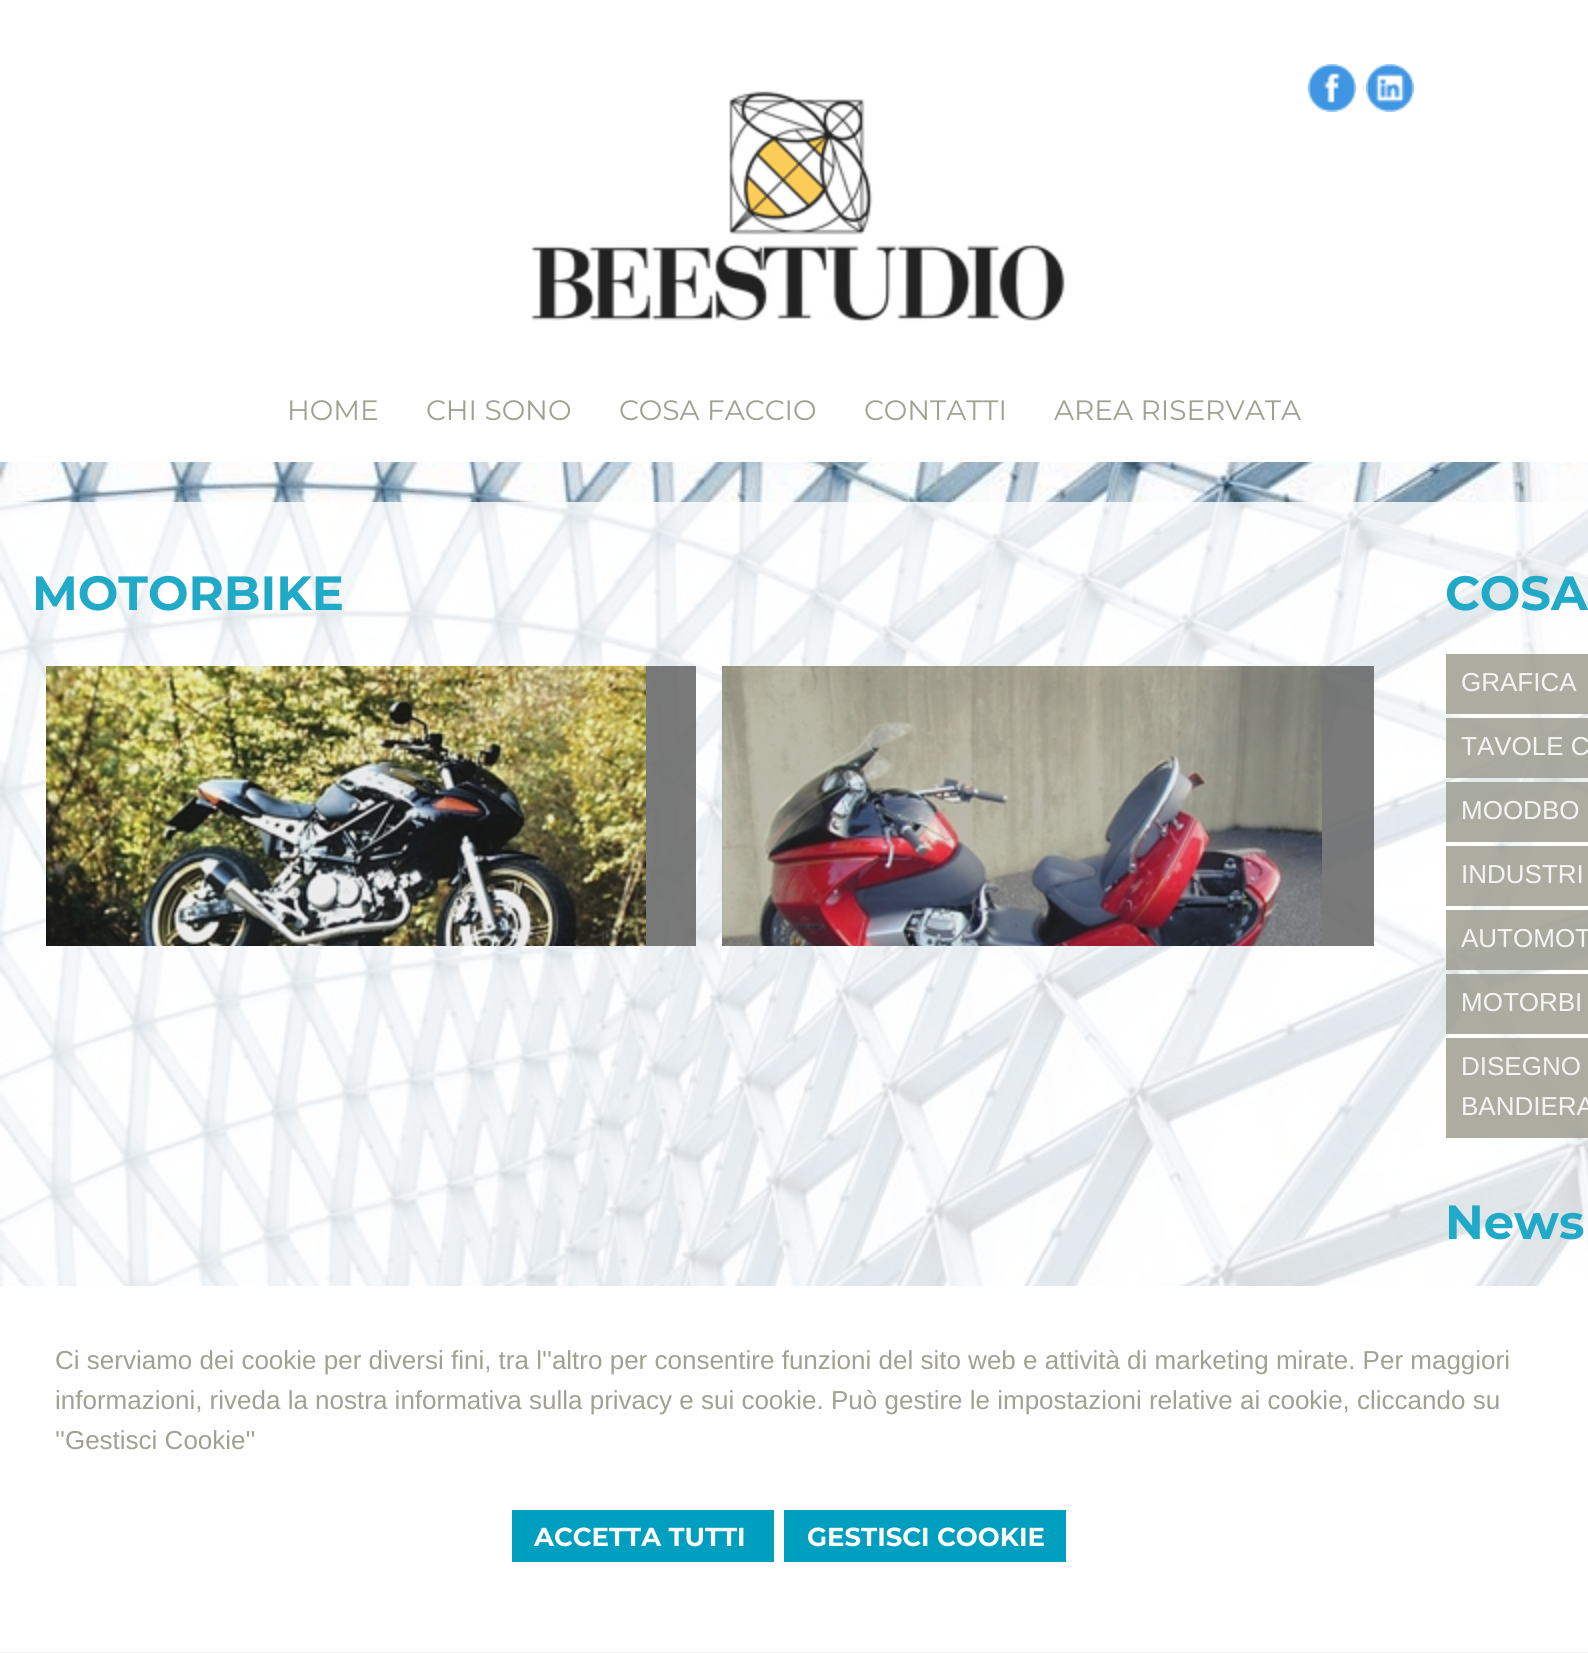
#include <cairo.h>
#include <math.h>
#include <stddef.h>


static void set_color(cairo_t *cr, unsigned color) {
    cairo_set_source_rgb(cr, (color >> 16) / 255.0, (color >> 8 & 255) / 255.0, (color & 255) / 255.0);
}

static void draw_text(cairo_t *cr, double x, double y, const char *s, const char *family, double size, int italic, int bold, unsigned color) {
    cairo_select_font_face(cr, family, italic ? CAIRO_FONT_SLANT_ITALIC : CAIRO_FONT_SLANT_NORMAL,
        bold ? CAIRO_FONT_WEIGHT_BOLD : CAIRO_FONT_WEIGHT_NORMAL);
    cairo_set_font_size(cr, size);
    set_color(cr, color);
    cairo_move_to(cr, x, y);
    cairo_show_text(cr, s);
}

static void fill_rect(cairo_t *cr, double x, double y, double w, double h, unsigned color) {
    set_color(cr, color);
    cairo_rectangle(cr, x, y, w, h);
    cairo_fill(cr);
}

static void draw_image(cairo_t *cr, const char *path, double x, double y, double w, double h) {
    cairo_surface_t *image = cairo_image_surface_create_from_png(path);
    cairo_save(cr);
    cairo_set_source_surface(cr, image, x, y);
    cairo_rectangle(cr, x, y, w, h);
    cairo_fill(cr);
    cairo_restore(cr);
    cairo_surface_destroy(image);
}

int main(void) {
    cairo_surface_t *surface = cairo_image_surface_create(CAIRO_FORMAT_RGB24, 1588, 1653);
    cairo_t *cr = cairo_create(surface);
    cairo_font_options_t *options = cairo_font_options_create();
    cairo_font_options_set_hint_metrics(options, CAIRO_HINT_METRICS_OFF);
    cairo_font_options_set_hint_style(options, CAIRO_HINT_STYLE_NONE);
    cairo_set_font_options(cr, options);
    cairo_set_miter_limit(cr, 4);
    set_color(cr, 0xFFFFFF);
    cairo_paint(cr);
    draw_image(cr, "assets/img1.png", 0, 462, 1588, 824);
    draw_image(cr, "assets/img2.png", 531, 91, 534, 232);
    draw_image(cr, "assets/img3.png", 1308, 64, 48, 48);
    draw_image(cr, "assets/img4.png", 1366, 64, 48, 48);
    draw_text(cr, 287, 420, "HOME", "Montserrat", 28, 0, 0, 0xA0A093);
    draw_text(cr, 426, 420, "CHI SONO", "Montserrat", 28, 0, 0, 0xA0A093);
    draw_text(cr, 619, 420, "COSA FACCIO", "Montserrat", 28, 0, 0, 0xA0A093);
    draw_text(cr, 864, 420, "CONTATTI", "Montserrat", 28, 0, 0, 0xA0A093);
    draw_text(cr, 1054, 420, "AREA RISERVATA", "Montserrat", 28, 0, 0, 0xA0A093);
    cairo_set_source_rgba(cr, 1, 1, 1, 0.82);
    cairo_rectangle(cr, 0, 502, 1588, 784);
    cairo_fill(cr);
    draw_text(cr, 32, 610, "MOTORBIKE", "Montserrat", 48, 0, 1, 0x20AAC7);
    cairo_set_source_rgba(cr, 0.4, 0.4, 0.4, 0.87);
    cairo_rectangle(cr, 46, 666, 650, 280);
    cairo_fill(cr);
    draw_image(cr, "assets/img5.png", 46, 666, 600, 280);
    cairo_rectangle(cr, 722, 666, 652, 280);
    cairo_fill(cr);
    draw_image(cr, "assets/img6.png", 722, 666, 600, 280);
    draw_text(cr, 1445, 610, "COSA", "Montserrat", 48, 0, 1, 0x20AAC7);
    cairo_set_source_rgba(cr, 0.627, 0.627, 0.576, 0.87);
    cairo_rectangle(cr, 1446, 654, 142, 60);
    cairo_fill(cr);
    draw_text(cr, 1461, 691, "GRAFICA", "Liberation Sans", 26, 0, 0, 0xF4F4F3);
    cairo_set_source_rgba(cr, 0.627, 0.627, 0.576, 0.87);
    cairo_rectangle(cr, 1446, 718, 142, 60);
    cairo_fill(cr);
    draw_text(cr, 1461, 755, "TAVOLE C", "Liberation Sans", 26, 0, 0, 0xF4F4F3);
    cairo_set_source_rgba(cr, 0.627, 0.627, 0.576, 0.87);
    cairo_rectangle(cr, 1446, 782, 142, 60);
    cairo_fill(cr);
    draw_text(cr, 1461, 819, "MOODBO", "Liberation Sans", 26, 0, 0, 0xF4F4F3);
    cairo_set_source_rgba(cr, 0.627, 0.627, 0.576, 0.87);
    cairo_rectangle(cr, 1446, 846, 142, 60);
    cairo_fill(cr);
    draw_text(cr, 1461, 883, "INDUSTRI", "Liberation Sans", 26, 0, 0, 0xF4F4F3);
    cairo_set_source_rgba(cr, 0.627, 0.627, 0.576, 0.87);
    cairo_rectangle(cr, 1446, 910, 142, 60);
    cairo_fill(cr);
    draw_text(cr, 1461, 947, "AUTOMOT", "Liberation Sans", 26, 0, 0, 0xF4F4F3);
    cairo_set_source_rgba(cr, 0.627, 0.627, 0.576, 0.87);
    cairo_rectangle(cr, 1446, 974, 142, 60);
    cairo_fill(cr);
    draw_text(cr, 1461, 1011, "MOTORBI", "Liberation Sans", 26, 0, 0, 0xF4F4F3);
    cairo_set_source_rgba(cr, 0.627, 0.627, 0.576, 0.87);
    cairo_rectangle(cr, 1446, 1038, 142, 100);
    cairo_fill(cr);
    draw_text(cr, 1461, 1075, "DISEGNO", "Liberation Sans", 26, 0, 0, 0xF4F4F3);
    draw_text(cr, 1461, 1115, "BANDIERA", "Liberation Sans", 26, 0, 0, 0xF4F4F3);
    draw_text(cr, 1445, 1239, "News", "Montserrat", 48, 0, 1, 0x20AAC7);
    fill_rect(cr, 0, 1652, 1588, 1, 0xF1F1F1);
    draw_text(cr, 55, 1369, "Ci serviamo dei cookie per diversi fini, tra l''altro per consentire funzioni del sito web e attività di marketing mirate. Per maggiori", "Liberation Sans", 26, 0, 0, 0xA0A093);
    draw_text(cr, 55, 1409, "informazioni, riveda la nostra informativa sulla privacy e sui cookie. Può gestire le impostazioni relative ai cookie, cliccando su", "Liberation Sans", 26, 0, 0, 0xA0A093);
    draw_text(cr, 55, 1449, "''Gestisci Cookie''", "Liberation Sans", 26, 0, 0, 0xA0A093);
    fill_rect(cr, 512, 1510, 262, 52, 0x009EBF);
    draw_text(cr, 534, 1546, "ACCETTA TUTTI", "Montserrat", 26, 0, 1, 0xFFFFFF);
    fill_rect(cr, 784, 1510, 282, 52, 0x009EBF);
    draw_text(cr, 807, 1546, "GESTISCI COOKIE", "Montserrat", 26, 0, 1, 0xFFFFFF);
    cairo_surface_write_to_png(surface, "output.png");
    cairo_font_options_destroy(options);
    cairo_destroy(cr);
    cairo_surface_destroy(surface);
    return 0;
}
